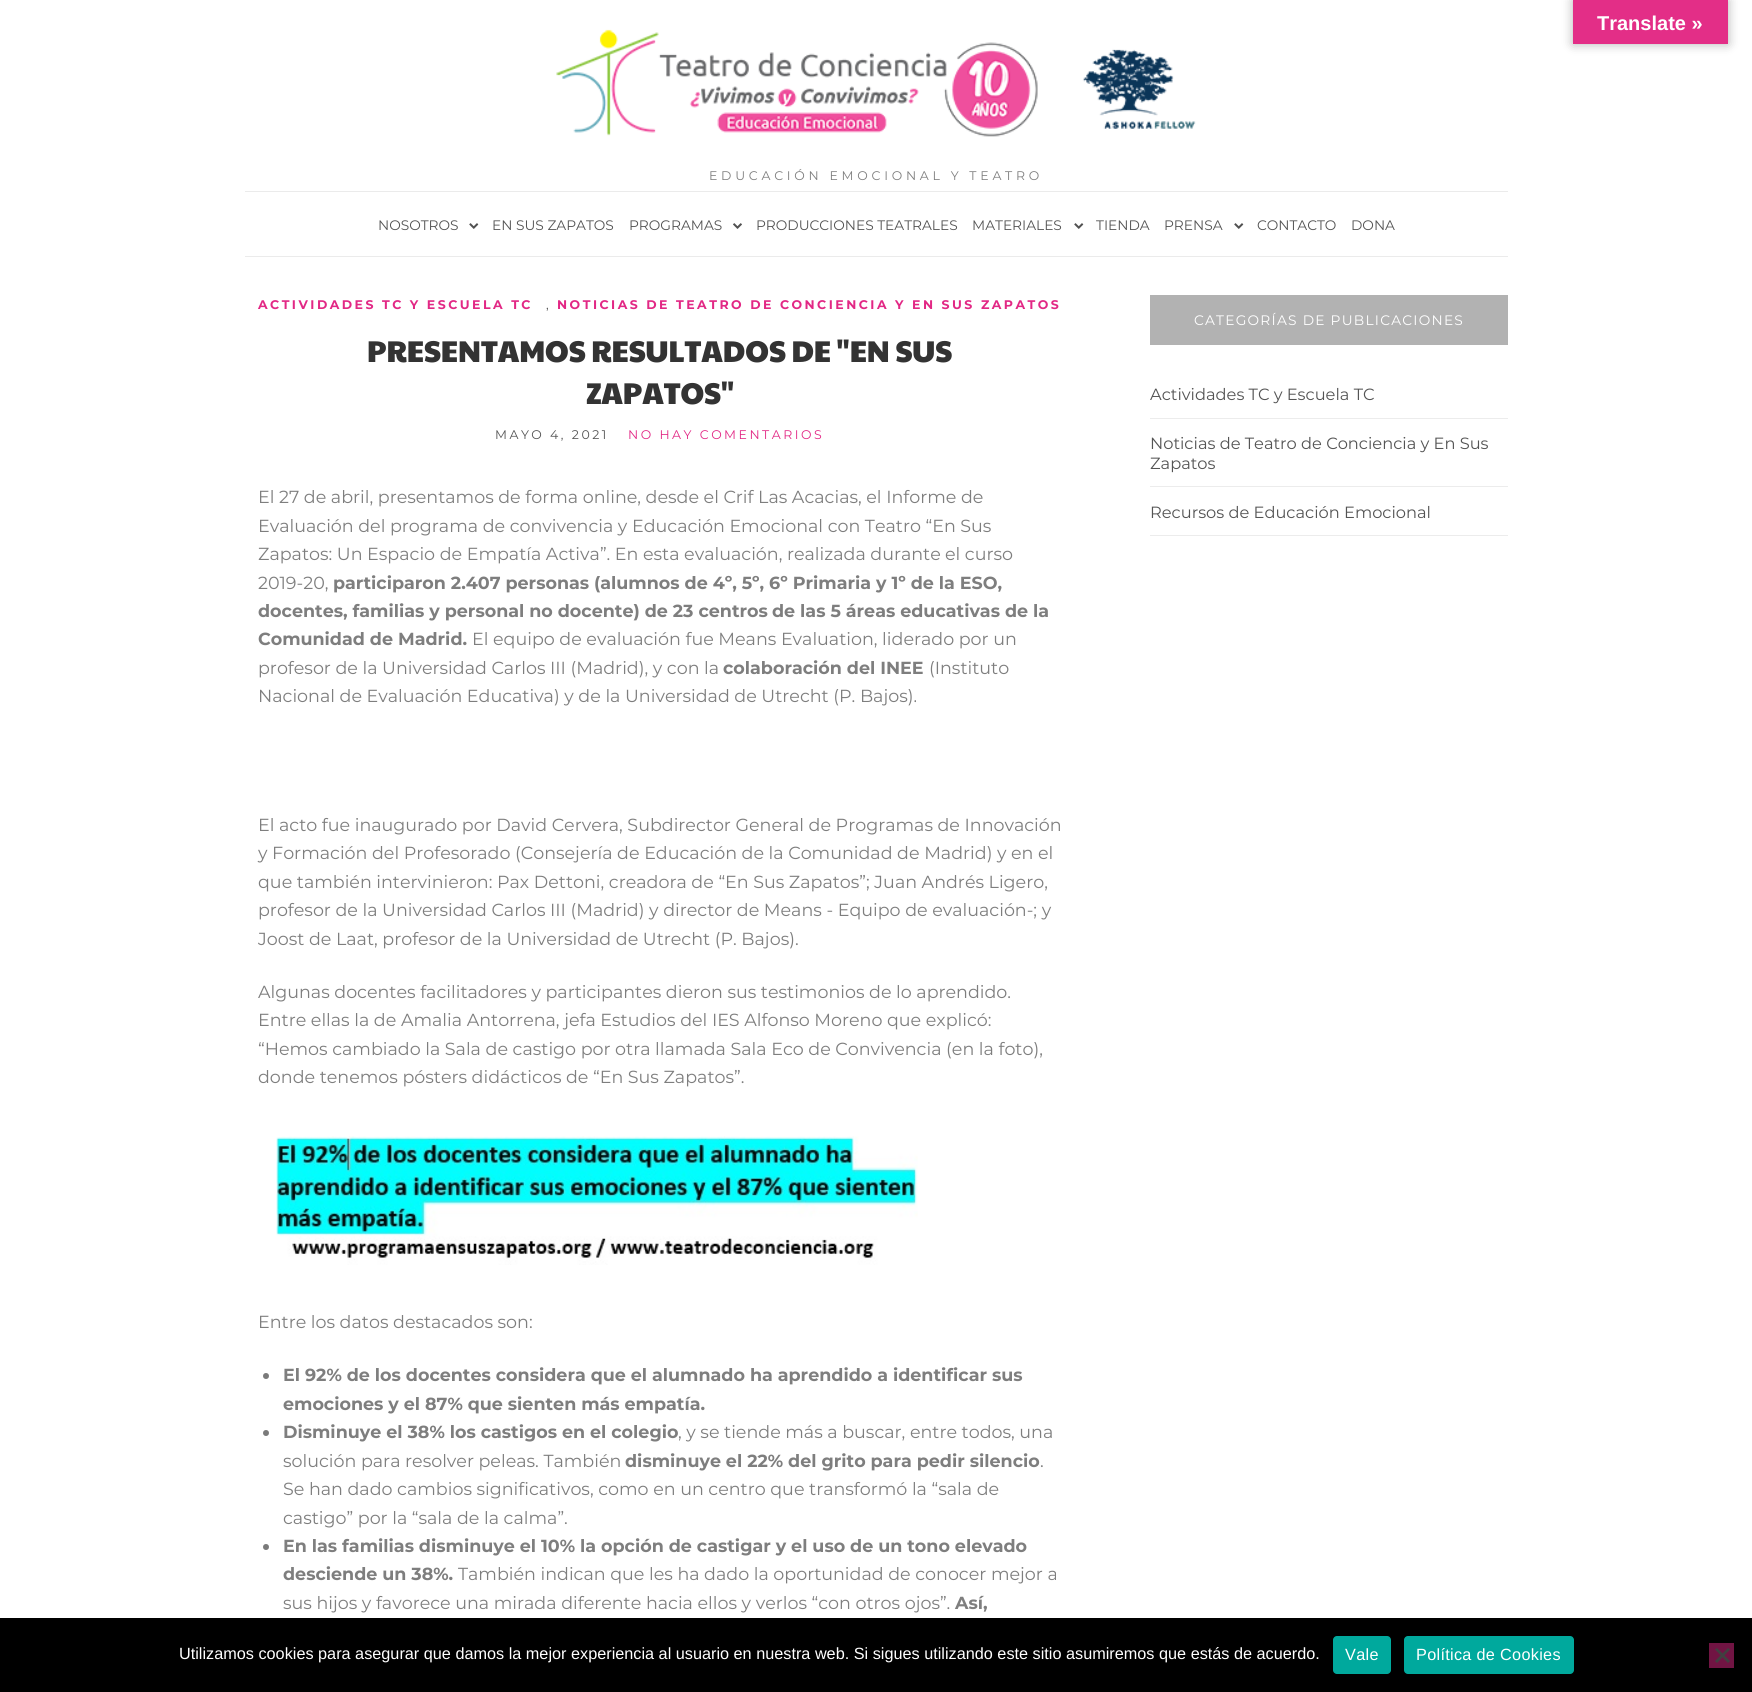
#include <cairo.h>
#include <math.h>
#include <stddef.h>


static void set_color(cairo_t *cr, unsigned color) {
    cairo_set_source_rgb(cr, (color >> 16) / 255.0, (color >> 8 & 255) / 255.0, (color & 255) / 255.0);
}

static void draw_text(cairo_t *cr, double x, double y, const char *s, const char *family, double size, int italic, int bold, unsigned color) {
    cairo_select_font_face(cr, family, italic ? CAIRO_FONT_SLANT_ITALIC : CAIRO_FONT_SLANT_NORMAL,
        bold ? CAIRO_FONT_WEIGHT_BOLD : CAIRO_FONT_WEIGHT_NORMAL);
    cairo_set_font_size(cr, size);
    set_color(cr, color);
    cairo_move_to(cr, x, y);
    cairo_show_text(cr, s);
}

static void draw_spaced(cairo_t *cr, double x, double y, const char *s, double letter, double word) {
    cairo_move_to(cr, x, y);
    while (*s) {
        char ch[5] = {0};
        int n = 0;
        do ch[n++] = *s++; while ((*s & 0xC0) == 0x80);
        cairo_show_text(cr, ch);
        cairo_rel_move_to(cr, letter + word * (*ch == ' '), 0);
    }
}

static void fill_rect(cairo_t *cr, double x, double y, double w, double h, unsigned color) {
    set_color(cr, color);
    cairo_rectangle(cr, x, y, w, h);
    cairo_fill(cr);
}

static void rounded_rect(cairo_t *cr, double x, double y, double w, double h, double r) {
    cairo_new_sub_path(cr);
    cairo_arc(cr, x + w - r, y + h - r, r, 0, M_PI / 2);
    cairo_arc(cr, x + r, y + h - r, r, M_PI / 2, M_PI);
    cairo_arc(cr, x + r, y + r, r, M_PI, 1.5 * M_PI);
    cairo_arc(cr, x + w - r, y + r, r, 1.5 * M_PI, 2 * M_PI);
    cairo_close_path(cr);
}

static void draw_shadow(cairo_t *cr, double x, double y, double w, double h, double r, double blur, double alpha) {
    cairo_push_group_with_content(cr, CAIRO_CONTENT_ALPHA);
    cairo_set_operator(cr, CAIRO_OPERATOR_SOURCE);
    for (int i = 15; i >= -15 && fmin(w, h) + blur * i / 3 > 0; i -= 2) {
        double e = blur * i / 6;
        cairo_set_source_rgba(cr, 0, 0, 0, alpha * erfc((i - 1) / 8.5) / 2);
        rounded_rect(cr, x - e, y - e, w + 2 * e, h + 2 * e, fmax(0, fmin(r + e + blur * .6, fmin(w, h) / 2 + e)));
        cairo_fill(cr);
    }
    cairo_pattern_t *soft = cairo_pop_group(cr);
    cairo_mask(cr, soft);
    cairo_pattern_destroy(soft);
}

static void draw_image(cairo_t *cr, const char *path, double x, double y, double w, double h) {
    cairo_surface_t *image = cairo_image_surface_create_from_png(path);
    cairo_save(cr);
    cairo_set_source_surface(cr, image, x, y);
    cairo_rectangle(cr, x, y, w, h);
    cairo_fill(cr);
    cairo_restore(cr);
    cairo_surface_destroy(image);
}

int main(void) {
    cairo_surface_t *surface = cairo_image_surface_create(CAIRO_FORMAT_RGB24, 1752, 1692);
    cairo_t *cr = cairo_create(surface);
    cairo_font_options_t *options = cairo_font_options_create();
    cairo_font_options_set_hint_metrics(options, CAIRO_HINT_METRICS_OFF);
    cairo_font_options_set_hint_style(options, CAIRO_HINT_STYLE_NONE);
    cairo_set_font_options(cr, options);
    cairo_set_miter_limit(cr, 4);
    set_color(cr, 0xFFFFFF);
    cairo_paint(cr);
    set_color(cr, 0x000000);
    draw_shadow(cr, 1573, 0, 155, 44, 0, 5.5, 0.3);
    fill_rect(cr, 1573, 0, 155, 44, 0xE32E87);
    draw_text(cr, 1597, 30, "Translate »", "Liberation Sans", 20, 0, 1, 0xFFFFFF);
    cairo_select_font_face(cr, "Montserrat", CAIRO_FONT_SLANT_NORMAL, CAIRO_FONT_WEIGHT_BOLD);
    cairo_set_font_size(cr, 12.5);
    set_color(cr, 0xE22885);
    draw_spaced(cr, 258, 309, "ACTIVIDADES TC Y ESCUELA TC", 2.5, 0);
    cairo_select_font_face(cr, "Montserrat", CAIRO_FONT_SLANT_NORMAL, CAIRO_FONT_WEIGHT_NORMAL);
    set_color(cr, 0x545454);
    draw_spaced(cr, 546, 309, ",", 2.5, 0);
    cairo_select_font_face(cr, "Montserrat", CAIRO_FONT_SLANT_NORMAL, CAIRO_FONT_WEIGHT_BOLD);
    set_color(cr, 0xE22885);
    draw_spaced(cr, 557, 309, "NOTICIAS DE TEATRO DE CONCIENCIA Y EN SUS ZAPATOS", 2.5, 0);
    draw_text(cr, 367, 362, "PRESENTAMOS RESULTADOS DE \"EN SUS", "Paytone One", 30, 0, 0, 0x333333);
    draw_text(cr, 586, 404, "ZAPATOS\"", "Paytone One", 30, 0, 0, 0x333333);
    cairo_select_font_face(cr, "Montserrat", CAIRO_FONT_SLANT_NORMAL, CAIRO_FONT_WEIGHT_NORMAL);
    cairo_set_font_size(cr, 12.5);
    set_color(cr, 0x545454);
    draw_spaced(cr, 495, 439, "MAYO 4, 2021", 2.5, 0);
    set_color(cr, 0xE22885);
    draw_spaced(cr, 628, 439, "NO HAY COMENTARIOS", 2.5, 0);
    draw_text(cr, 258, 503, "El 27 de abril, presentamos de forma online, desde el Crif Las Acacias, el Informe de", "Montserrat", 17.5, 0, 0, 0x7E7E7E);
    draw_text(cr, 258, 532, "Evaluación del programa de convivencia y Educación Emocional con Teatro “En Sus", "Montserrat", 17.5, 0, 0, 0x7E7E7E);
    draw_text(cr, 258, 560, "Zapatos: Un Espacio de Empatía Activa”. En esta evaluación, realizada durante", "Montserrat", 17.5, 0, 0, 0x7E7E7E);
    draw_text(cr, 945, 560, "el curso", "Montserrat", 17.5, 0, 0, 0x7E7E7E);
    draw_text(cr, 258, 589, "2019-20,", "Montserrat", 17.5, 0, 0, 0x7E7E7E);
    draw_text(cr, 333, 589, "participaron 2.407 personas (alumnos de 4º, 5º, 6º Primaria y 1º de la ESO,", "Montserrat", 17.5, 0, 1, 0x7E7E7E);
    draw_text(cr, 258, 617, "docentes, familias y personal no docente) de 23 centros", "Montserrat", 17.5, 0, 1, 0x7E7E7E);
    draw_text(cr, 772, 617, "de las 5 áreas educativas de la", "Montserrat", 17.5, 0, 1, 0x7E7E7E);
    draw_text(cr, 258, 645, "Comunidad de Madrid.", "Montserrat", 17.5, 0, 1, 0x7E7E7E);
    draw_text(cr, 472, 645, "El equipo de evaluación fue Means Evaluation, liderado por un", "Montserrat", 17.5, 0, 0, 0x7E7E7E);
    draw_text(cr, 258, 674, "profesor de la Universidad Carlos III (Madrid), y con la", "Montserrat", 17.5, 0, 0, 0x7E7E7E);
    draw_text(cr, 723, 674, "colaboración del INEE", "Montserrat", 17.5, 0, 1, 0x7E7E7E);
    draw_text(cr, 929, 674, "(Instituto", "Montserrat", 17.5, 0, 0, 0x7E7E7E);
    draw_text(cr, 258, 702, "Nacional de Evaluación Educativa) y de la Universidad de Utrecht (P. Bajos).", "Montserrat", 17.5, 0, 0, 0x7E7E7E);
    draw_text(cr, 258, 831, "El acto fue inaugurado por David Cervera, Subdirector General de Programas de Innovación", "Montserrat", 17.5, 0, 0, 0x7E7E7E);
    draw_text(cr, 258, 859, "y Formación del Profesorado (Consejería de Educación de la Comunidad de Madrid) y en el", "Montserrat", 17.5, 0, 0, 0x7E7E7E);
    draw_text(cr, 258, 888, "que también intervinieron: Pax Dettoni, creadora de “En Sus Zapatos”; Juan Andrés Ligero,", "Montserrat", 17.5, 0, 0, 0x7E7E7E);
    draw_text(cr, 258, 916, "profesor de la Universidad Carlos III (Madrid) y director de Means - Equipo de evaluación-; y", "Montserrat", 17.5, 0, 0, 0x7E7E7E);
    draw_text(cr, 258, 945, "Joost de Laat, profesor de la Universidad de Utrecht (P. Bajos).", "Montserrat", 17.5, 0, 0, 0x7E7E7E);
    draw_text(cr, 258, 998, "Algunas docentes facilitadores y participantes dieron sus testimonios de lo aprendido.", "Montserrat", 17.5, 0, 0, 0x7E7E7E);
    draw_text(cr, 258, 1026, "Entre ellas la de Amalia Antorrena, jefa Estudios del IES Alfonso Moreno que explicó:", "Montserrat", 17.5, 0, 0, 0x7E7E7E);
    draw_text(cr, 258, 1055, "“Hemos cambiado la Sala de castigo por otra llamada Sala Eco de Convivencia (en la foto),", "Montserrat", 17.5, 0, 0, 0x7E7E7E);
    draw_text(cr, 258, 1083, "donde tenemos pósters didácticos de “En Sus Zapatos”.", "Montserrat", 17.5, 0, 0, 0x7E7E7E);
    draw_image(cr, "assets/img1.png", 276, 1136, 642, 129);
    draw_text(cr, 258, 1328, "Entre los datos destacados son:", "Montserrat", 17.5, 0, 0, 0x7E7E7E);
    set_color(cr, 0x7A7A7A);
    cairo_new_path(cr);
    cairo_arc(cr, 266, 1376, 3, 0, 2 * M_PI);
    cairo_fill(cr);
    draw_text(cr, 283, 1381, "El 92% de los docentes considera que el alumnado ha aprendido a identificar sus", "Montserrat", 17.5, 0, 1, 0x7E7E7E);
    draw_text(cr, 283, 1410, "emociones y el 87% que sienten más empatía.", "Montserrat", 17.5, 0, 1, 0x7E7E7E);
    set_color(cr, 0x7A7A7A);
    cairo_new_path(cr);
    cairo_arc(cr, 266, 1433, 3, 0, 2 * M_PI);
    cairo_fill(cr);
    draw_text(cr, 283, 1438, "Disminuye el 38% los castigos en el colegio", "Montserrat", 17.5, 0, 1, 0x7E7E7E);
    draw_text(cr, 678, 1438, ", y se tiende más a buscar, entre todos, una", "Montserrat", 17.5, 0, 0, 0x7E7E7E);
    draw_text(cr, 283, 1467, "solución para resolver peleas. También", "Montserrat", 17.5, 0, 0, 0x7E7E7E);
    draw_text(cr, 625, 1467, "disminuye el 22% del grito para pedir silencio", "Montserrat", 17.5, 0, 1, 0x7E7E7E);
    draw_text(cr, 1040, 1467, ".", "Montserrat", 17.5, 0, 0, 0x7E7E7E);
    draw_text(cr, 283, 1495, "Se han dado cambios significativos, como en un centro que transformó la “sala de", "Montserrat", 17.5, 0, 0, 0x7E7E7E);
    draw_text(cr, 283, 1524, "castigo” por la “sala de la calma”.", "Montserrat", 17.5, 0, 0, 0x7E7E7E);
    set_color(cr, 0x7A7A7A);
    cairo_new_path(cr);
    cairo_arc(cr, 266, 1547, 3, 0, 2 * M_PI);
    cairo_fill(cr);
    draw_text(cr, 283, 1552, "En las familias disminuye el 10% la opción de castigar y el uso de un tono elevado", "Montserrat", 17.5, 0, 1, 0x7E7E7E);
    draw_text(cr, 283, 1580, "desciende un 38%.", "Montserrat", 17.5, 0, 1, 0x7E7E7E);
    draw_text(cr, 458, 1580, "También indican que les ha dado la oportunidad de conocer mejor a", "Montserrat", 17.5, 0, 0, 0x7E7E7E);
    draw_text(cr, 283, 1609, "sus hijos y favorece una mirada diferente hacia ellos y verlos “con otros ojos”.", "Montserrat", 17.5, 0, 0, 0x7E7E7E);
    draw_text(cr, 955, 1609, "Así,", "Montserrat", 17.5, 0, 1, 0x7E7E7E);
    fill_rect(cr, 1150, 295, 358, 50, 0xB2B2B2);
    cairo_select_font_face(cr, "Montserrat", CAIRO_FONT_SLANT_NORMAL, CAIRO_FONT_WEIGHT_NORMAL);
    cairo_set_font_size(cr, 13.75);
    set_color(cr, 0xFFFFFF);
    draw_spaced(cr, 1194, 325, "CATEGORÍAS DE PUBLICACIONES", 1.25, 0);
    fill_rect(cr, 1150, 418, 358, 1, 0xECECEC);
    draw_text(cr, 1150, 400, "Actividades TC y Escuela TC", "Montserrat", 16.25, 0, 0, 0x545454);
    fill_rect(cr, 1150, 486, 358, 1, 0xECECEC);
    draw_text(cr, 1150, 449, "Noticias de Teatro de Conciencia y En Sus", "Montserrat", 16.25, 0, 0, 0x545454);
    draw_text(cr, 1150, 469, "Zapatos", "Montserrat", 16.25, 0, 0, 0x545454);
    fill_rect(cr, 1150, 535, 358, 1, 0xECECEC);
    draw_text(cr, 1150, 518, "Recursos de Educación Emocional", "Montserrat", 16.25, 0, 0, 0x545454);
    fill_rect(cr, 0, 1618, 1752, 74, 0x000000);
    draw_text(cr, 179, 1659, "Utilizamos cookies para asegurar que damos la mejor experiencia al usuario en nuestra web. Si sigues utilizando este sitio asumiremos que estás de acuerdo.", "Liberation Sans", 16.25, 0, 0, 0xFFFFFF);
    set_color(cr, 0x00A99D);
    rounded_rect(cr, 1333, 1636, 58, 38, 4);
    cairo_fill(cr);
    set_color(cr, 0xFFFFFF);
    draw_spaced(cr, 1345, 1660, "Vale", 0.3, 0);
    set_color(cr, 0x00A99D);
    rounded_rect(cr, 1404, 1636, 170, 38, 4);
    cairo_fill(cr);
    set_color(cr, 0xFFFFFF);
    draw_spaced(cr, 1416, 1660, "Política de Cookies", 0.3, 0);
    fill_rect(cr, 1709, 1643, 25, 25, 0x711443);
    set_color(cr, 0x404040);
    cairo_new_path(cr);
    cairo_move_to(cr, 1728, 1648);
    cairo_line_to(cr, 1730, 1649.5);
    cairo_line_to(cr, 1717, 1663);
    cairo_line_to(cr, 1715, 1661);
    cairo_close_path(cr);
    cairo_fill(cr);
    cairo_new_path(cr);
    cairo_move_to(cr, 1715, 1649.5);
    cairo_line_to(cr, 1717, 1648);
    cairo_line_to(cr, 1730, 1661);
    cairo_line_to(cr, 1728, 1663);
    cairo_close_path(cr);
    cairo_fill(cr);
    draw_image(cr, "assets/img2.png", 556, 29, 640, 108);
    cairo_select_font_face(cr, "Montserrat", CAIRO_FONT_SLANT_NORMAL, CAIRO_FONT_WEIGHT_NORMAL);
    cairo_set_font_size(cr, 12.5);
    set_color(cr, 0x7E7E7E);
    draw_spaced(cr, 709, 180, "EDUCACIÓN EMOCIONAL Y TEATRO", 3.75, 0);
    fill_rect(cr, 245, 191, 1263, 1, 0xEBEBEB);
    fill_rect(cr, 245, 256, 1263, 1, 0xEBEBEB);
    draw_text(cr, 378, 230, "NOSOTROS", "Montserrat", 13.75, 0, 0, 0x545454);
    draw_image(cr, "assets/img3.png", 469, 223, 10, 6);
    draw_text(cr, 492, 230, "EN SUS ZAPATOS", "Montserrat", 13.75, 0, 0, 0x545454);
    draw_text(cr, 629, 230, "PROGRAMAS", "Montserrat", 13.75, 0, 0, 0x545454);
    draw_image(cr, "assets/img4.png", 733, 223, 9, 6);
    draw_text(cr, 756, 230, "PRODUCCIONES TEATRALES", "Montserrat", 13.75, 0, 0, 0x545454);
    draw_text(cr, 972, 230, "MATERIALES", "Montserrat", 13.75, 0, 0, 0x545454);
    draw_image(cr, "assets/img3.png", 1074, 223, 10, 6);
    draw_text(cr, 1096, 230, "TIENDA", "Montserrat", 13.75, 0, 0, 0x545454);
    draw_text(cr, 1164, 230, "PRENSA", "Montserrat", 13.75, 0, 0, 0x545454);
    draw_image(cr, "assets/img3.png", 1234, 223, 10, 6);
    draw_text(cr, 1257, 230, "CONTACTO", "Montserrat", 13.75, 0, 0, 0x545454);
    draw_text(cr, 1351, 230, "DONA", "Montserrat", 13.75, 0, 0, 0x545454);
    cairo_surface_write_to_png(surface, "output.png");
    cairo_font_options_destroy(options);
    cairo_destroy(cr);
    cairo_surface_destroy(surface);
    return 0;
}
